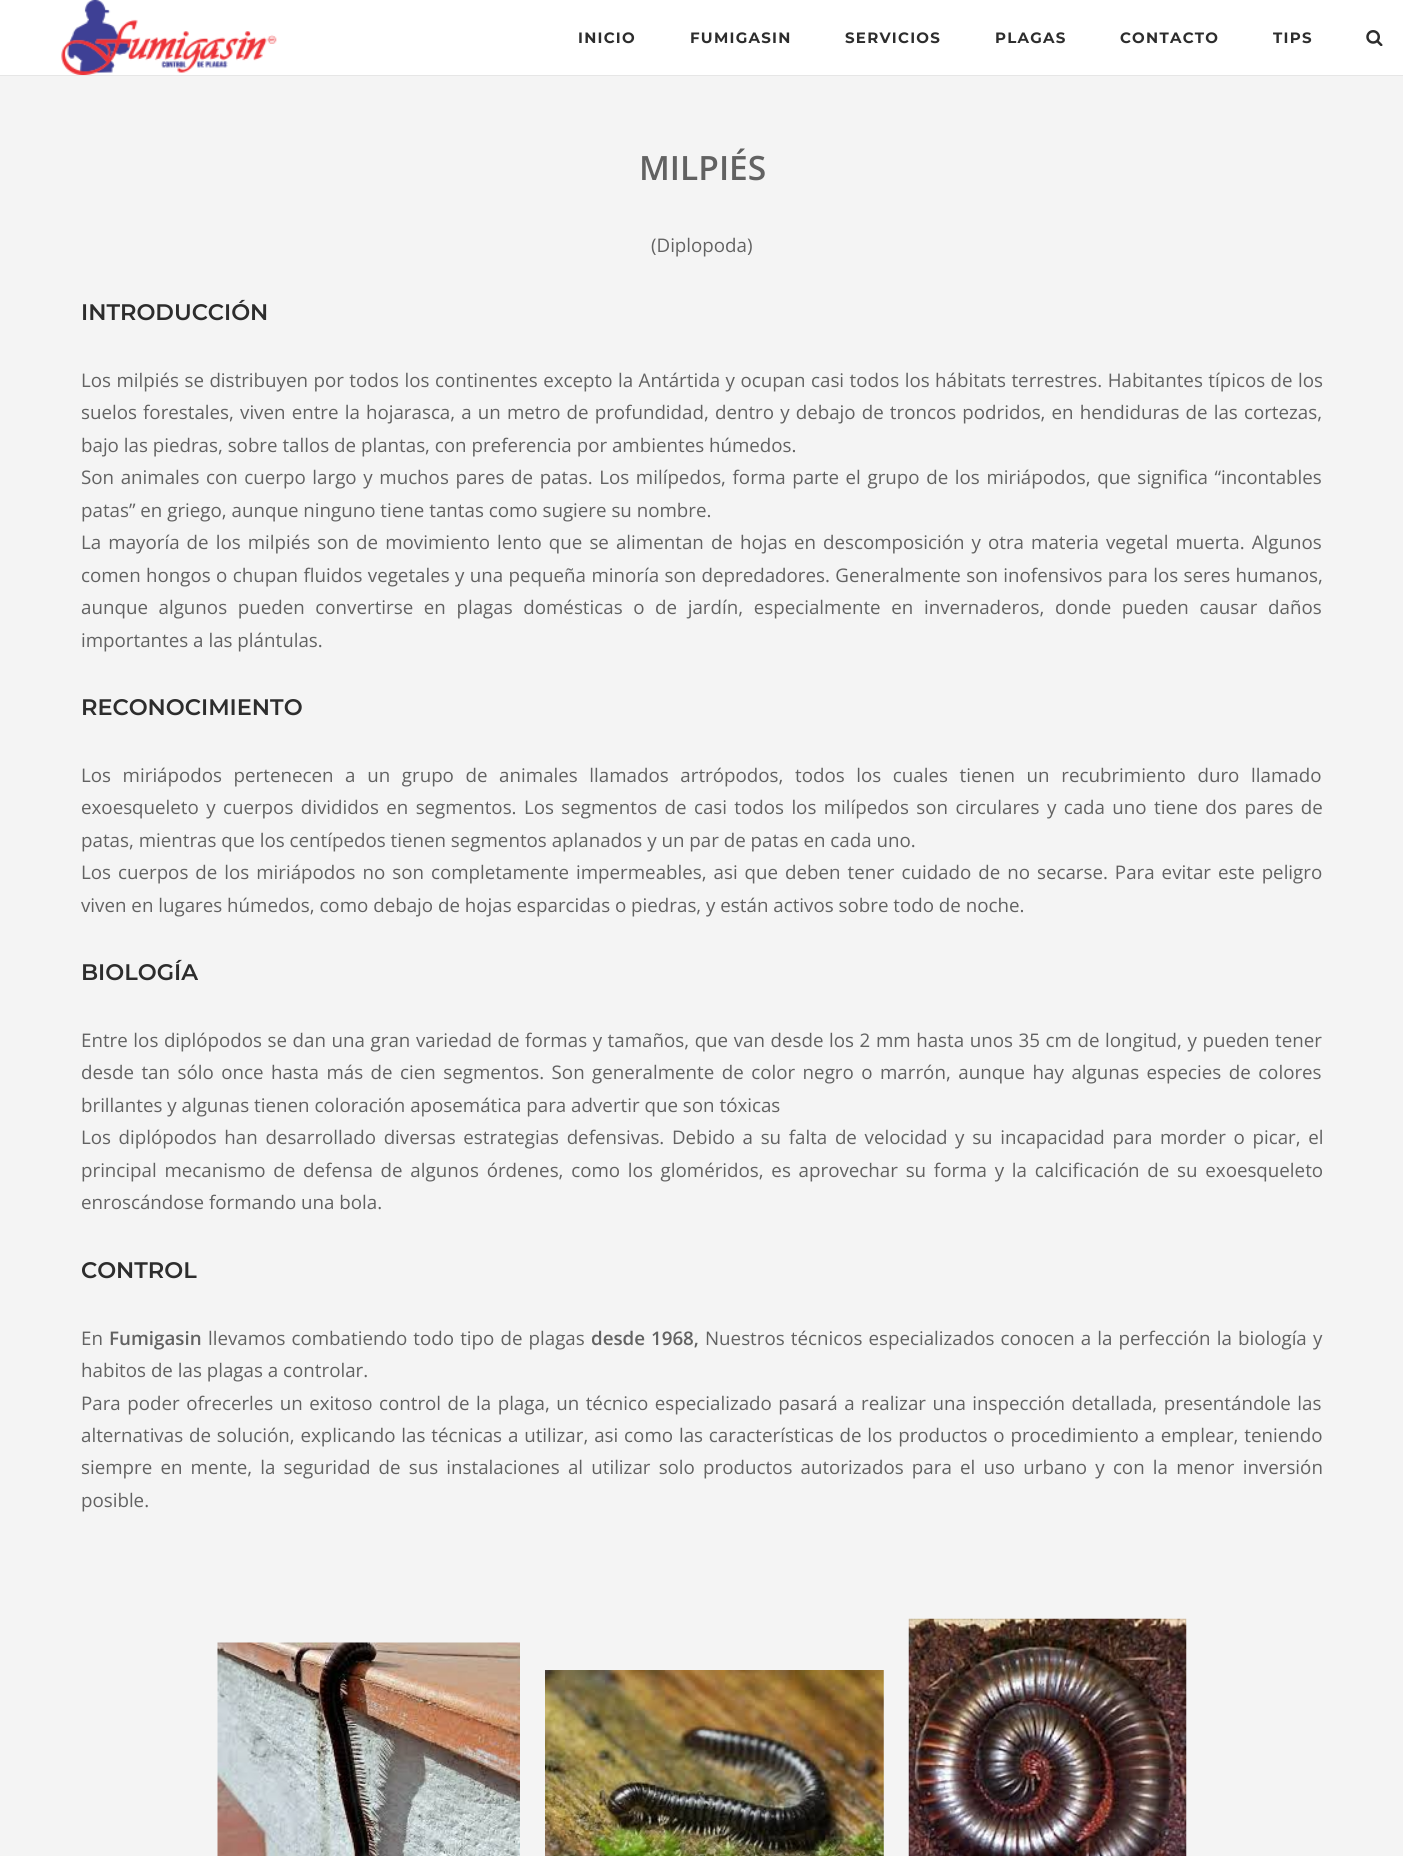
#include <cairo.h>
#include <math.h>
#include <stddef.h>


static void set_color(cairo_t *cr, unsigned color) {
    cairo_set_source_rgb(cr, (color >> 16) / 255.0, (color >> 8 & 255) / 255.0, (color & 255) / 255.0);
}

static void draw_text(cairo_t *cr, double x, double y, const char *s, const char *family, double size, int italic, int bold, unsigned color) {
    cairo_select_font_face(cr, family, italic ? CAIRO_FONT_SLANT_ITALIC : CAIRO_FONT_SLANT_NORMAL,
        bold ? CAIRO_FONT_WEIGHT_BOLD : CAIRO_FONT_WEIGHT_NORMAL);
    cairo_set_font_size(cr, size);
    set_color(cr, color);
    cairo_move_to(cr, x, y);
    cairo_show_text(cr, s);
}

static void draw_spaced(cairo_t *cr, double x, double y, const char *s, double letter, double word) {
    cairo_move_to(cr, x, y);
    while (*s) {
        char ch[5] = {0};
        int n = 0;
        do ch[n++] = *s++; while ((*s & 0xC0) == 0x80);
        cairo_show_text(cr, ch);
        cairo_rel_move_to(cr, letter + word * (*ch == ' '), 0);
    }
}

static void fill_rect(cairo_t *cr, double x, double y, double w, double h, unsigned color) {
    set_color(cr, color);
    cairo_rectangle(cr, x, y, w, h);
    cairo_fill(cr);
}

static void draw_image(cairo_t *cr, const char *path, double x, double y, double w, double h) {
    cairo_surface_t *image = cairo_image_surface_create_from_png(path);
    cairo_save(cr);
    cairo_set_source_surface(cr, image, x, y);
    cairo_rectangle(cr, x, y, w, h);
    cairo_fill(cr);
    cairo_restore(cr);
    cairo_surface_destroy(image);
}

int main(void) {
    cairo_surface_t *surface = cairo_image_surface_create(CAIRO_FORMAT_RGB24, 1403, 1856);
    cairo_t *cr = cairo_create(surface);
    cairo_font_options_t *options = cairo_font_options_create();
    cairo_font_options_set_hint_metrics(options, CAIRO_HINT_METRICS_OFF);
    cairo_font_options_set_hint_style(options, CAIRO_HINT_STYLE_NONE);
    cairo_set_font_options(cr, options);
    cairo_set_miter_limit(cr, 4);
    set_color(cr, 0xF4F4F4);
    cairo_paint(cr);
    fill_rect(cr, 0, 0, 1403, 75, 0xFFFFFF);
    fill_rect(cr, 0, 75, 1403, 1, 0xE6E6E6);
    draw_image(cr, "assets/img1.png", 61, 0, 216, 75);
    cairo_select_font_face(cr, "Montserrat", CAIRO_FONT_SLANT_NORMAL, CAIRO_FONT_WEIGHT_BOLD);
    cairo_set_font_size(cr, 15);
    set_color(cr, 0x2D2D2D);
    draw_spaced(cr, 578, 43, "INICIO", 1.25, 0);
    draw_spaced(cr, 690, 43, "FUMIGASIN", 1.25, 0);
    draw_spaced(cr, 845, 43, "SERVICIOS", 1.25, 0);
    draw_spaced(cr, 995, 43, "PLAGAS", 1.25, 0);
    draw_spaced(cr, 1120, 43, "CONTACTO", 1.25, 0);
    draw_spaced(cr, 1273, 43, "TIPS", 1.25, 0);
    draw_image(cr, "assets/img2.png", 1366, 30, 17, 16);
    draw_text(cr, 639, 180, "MILPIÉS", "Open Sans SemiBold", 33.5, 0, 0, 0x626262);
    draw_text(cr, 651, 252, "(Diplopoda)", "Open Sans", 18.75, 0, 0, 0x626262);
    draw_text(cr, 81, 320, "INTRODUCCIÓN", "Montserrat SemiBold", 22.5, 0, 0, 0x2D2D2D);
    cairo_select_font_face(cr, "Open Sans", CAIRO_FONT_SLANT_NORMAL, CAIRO_FONT_WEIGHT_NORMAL);
    cairo_set_font_size(cr, 18.75);
    set_color(cr, 0x626262);
    draw_spaced(cr, 81, 387, "Los milpiés se distribuyen por todos los continentes excepto la Antártida y ocupan casi todos los hábitats terrestres. Habitantes típicos de los", 0, 0.6);
    draw_spaced(cr, 81, 419, "suelos forestales, viven entre la hojarasca, a un metro de profundidad, dentro y debajo de troncos podridos, en hendiduras de las cortezas,", 0, 1.25);
    draw_text(cr, 81, 452, "bajo las piedras, sobre tallos de plantas, con preferencia por ambientes húmedos.", "Open Sans", 18.75, 0, 0, 0x626262);
    draw_spaced(cr, 81, 484, "Son animales con cuerpo largo y muchos pares de patas. Los milípedos, forma parte el grupo de los miriápodos, que significa “incontables", 0, 1.75);
    draw_text(cr, 81, 517, "patas” en griego, aunque ninguno tiene tantas como sugiere su nombre.", "Open Sans", 18.75, 0, 0, 0x626262);
    draw_spaced(cr, 81, 549, "La mayoría de los milpiés son de movimiento lento que se alimentan de hojas en descomposición y otra materia vegetal muerta. Algunos", 0, 2.2);
    draw_spaced(cr, 81, 582, "comen hongos o chupan fluidos vegetales y una pequeña minoría son depredadores. Generalmente son inofensivos para los seres humanos,", 0, 0.5);
    draw_spaced(cr, 81, 614, "aunque algunos pueden convertirse en plagas domésticas o de jardín, especialmente en invernaderos, donde pueden causar daños", 0, 5.75);
    draw_text(cr, 81, 647, "importantes a las plántulas.", "Open Sans", 18.75, 0, 0, 0x626262);
    draw_text(cr, 81, 715, "RECONOCIMIENTO", "Montserrat SemiBold", 22.5, 0, 0, 0x2D2D2D);
    cairo_select_font_face(cr, "Open Sans", CAIRO_FONT_SLANT_NORMAL, CAIRO_FONT_WEIGHT_NORMAL);
    cairo_set_font_size(cr, 18.75);
    set_color(cr, 0x626262);
    draw_spaced(cr, 81, 782, "Los miriápodos pertenecen a un grupo de animales llamados artrópodos, todos los cuales tienen un recubrimiento duro llamado", 0, 6.75);
    draw_spaced(cr, 81, 814, "exoesqueleto y cuerpos divididos en segmentos. Los segmentos de casi todos los milípedos son circulares y cada uno tiene dos pares de", 0, 2.5);
    draw_text(cr, 81, 847, "patas, mientras que los centípedos tienen segmentos aplanados y un par de patas en cada uno.", "Open Sans", 18.75, 0, 0, 0x626262);
    draw_spaced(cr, 81, 879, "Los cuerpos de los miriápodos no son completamente impermeables, asi que deben tener cuidado de no secarse. Para evitar este peligro", 0, 2.1);
    draw_text(cr, 81, 912, "viven en lugares húmedos, como debajo de hojas esparcidas o piedras, y están activos sobre todo de noche.", "Open Sans", 18.75, 0, 0, 0x626262);
    draw_text(cr, 81, 980, "BIOLOGÍA", "Montserrat SemiBold", 22.5, 0, 0, 0x2D2D2D);
    cairo_select_font_face(cr, "Open Sans", CAIRO_FONT_SLANT_NORMAL, CAIRO_FONT_WEIGHT_NORMAL);
    cairo_set_font_size(cr, 18.75);
    set_color(cr, 0x626262);
    draw_spaced(cr, 81, 1047, "Entre los diplópodos se dan una gran variedad de formas y tamaños, que van desde los 2 mm hasta unos 35 cm de longitud, y pueden tener", 0, 0.7);
    draw_spaced(cr, 81, 1079, "desde tan sólo once hasta más de cien segmentos. Son generalmente de color negro o marrón, aunque hay algunas especies de colores", 0, 2.6);
    draw_text(cr, 81, 1112, "brillantes y algunas tienen coloración aposemática para advertir que son tóxicas", "Open Sans", 18.75, 0, 0, 0x626262);
    draw_spaced(cr, 81, 1144, "Los diplópodos han desarrollado diversas estrategias defensivas. Debido a su falta de velocidad y su incapacidad para morder o picar, el", 0, 2.75);
    draw_spaced(cr, 81, 1177, "principal mecanismo de defensa de algunos órdenes, como los gloméridos, es aprovechar su forma y la calcificación de su exoesqueleto", 0, 2.9);
    draw_text(cr, 81, 1209, "enroscándose formando una bola.", "Open Sans", 18.75, 0, 0, 0x626262);
    draw_text(cr, 81, 1278, "CONTROL", "Montserrat SemiBold", 22.5, 0, 0, 0x2D2D2D);
    draw_text(cr, 81, 1345, "En", "Open Sans", 18.75, 0, 0, 0x626262);
    draw_text(cr, 109, 1345, "Fumigasin", "Open Sans SemiBold", 18.75, 0, 0, 0x626262);
    cairo_select_font_face(cr, "Open Sans", CAIRO_FONT_SLANT_NORMAL, CAIRO_FONT_WEIGHT_NORMAL);
    draw_spaced(cr, 208, 1345, "llevamos combatiendo todo tipo de plagas", 0, 1.25);
    cairo_select_font_face(cr, "Open Sans SemiBold", CAIRO_FONT_SLANT_NORMAL, CAIRO_FONT_WEIGHT_NORMAL);
    draw_spaced(cr, 591, 1345, "desde 1968,", 0, 1);
    cairo_select_font_face(cr, "Open Sans", CAIRO_FONT_SLANT_NORMAL, CAIRO_FONT_WEIGHT_NORMAL);
    draw_spaced(cr, 705, 1345, "Nuestros técnicos especializados conocen a la perfección la biología y", 0, 1.25);
    draw_text(cr, 81, 1377, "habitos de las plagas a controlar.", "Open Sans", 18.75, 0, 0, 0x626262);
    draw_spaced(cr, 81, 1410, "Para poder ofrecerles un exitoso control de la plaga, un técnico especializado pasará a realizar una inspección detallada, presentándole las", 0, 1.6);
    draw_spaced(cr, 81, 1442, "alternativas de solución, explicando las técnicas a utilizar, asi como las características de los productos o procedimiento a emplear, teniendo", 0, 1);
    draw_spaced(cr, 81, 1474, "siempre en mente, la seguridad de sus instalaciones al utilizar solo productos autorizados para el uso urbano y con la menor inversión", 0, 3.3);
    draw_text(cr, 81, 1507, "posible.", "Open Sans", 18.75, 0, 0, 0x626262);
    draw_image(cr, "assets/img3.png", 217, 1642, 303, 214);
    draw_image(cr, "assets/img4.png", 545, 1670, 339, 186);
    draw_image(cr, "assets/img5.png", 908, 1618, 279, 238);
    cairo_surface_write_to_png(surface, "output.png");
    cairo_font_options_destroy(options);
    cairo_destroy(cr);
    cairo_surface_destroy(surface);
    return 0;
}
